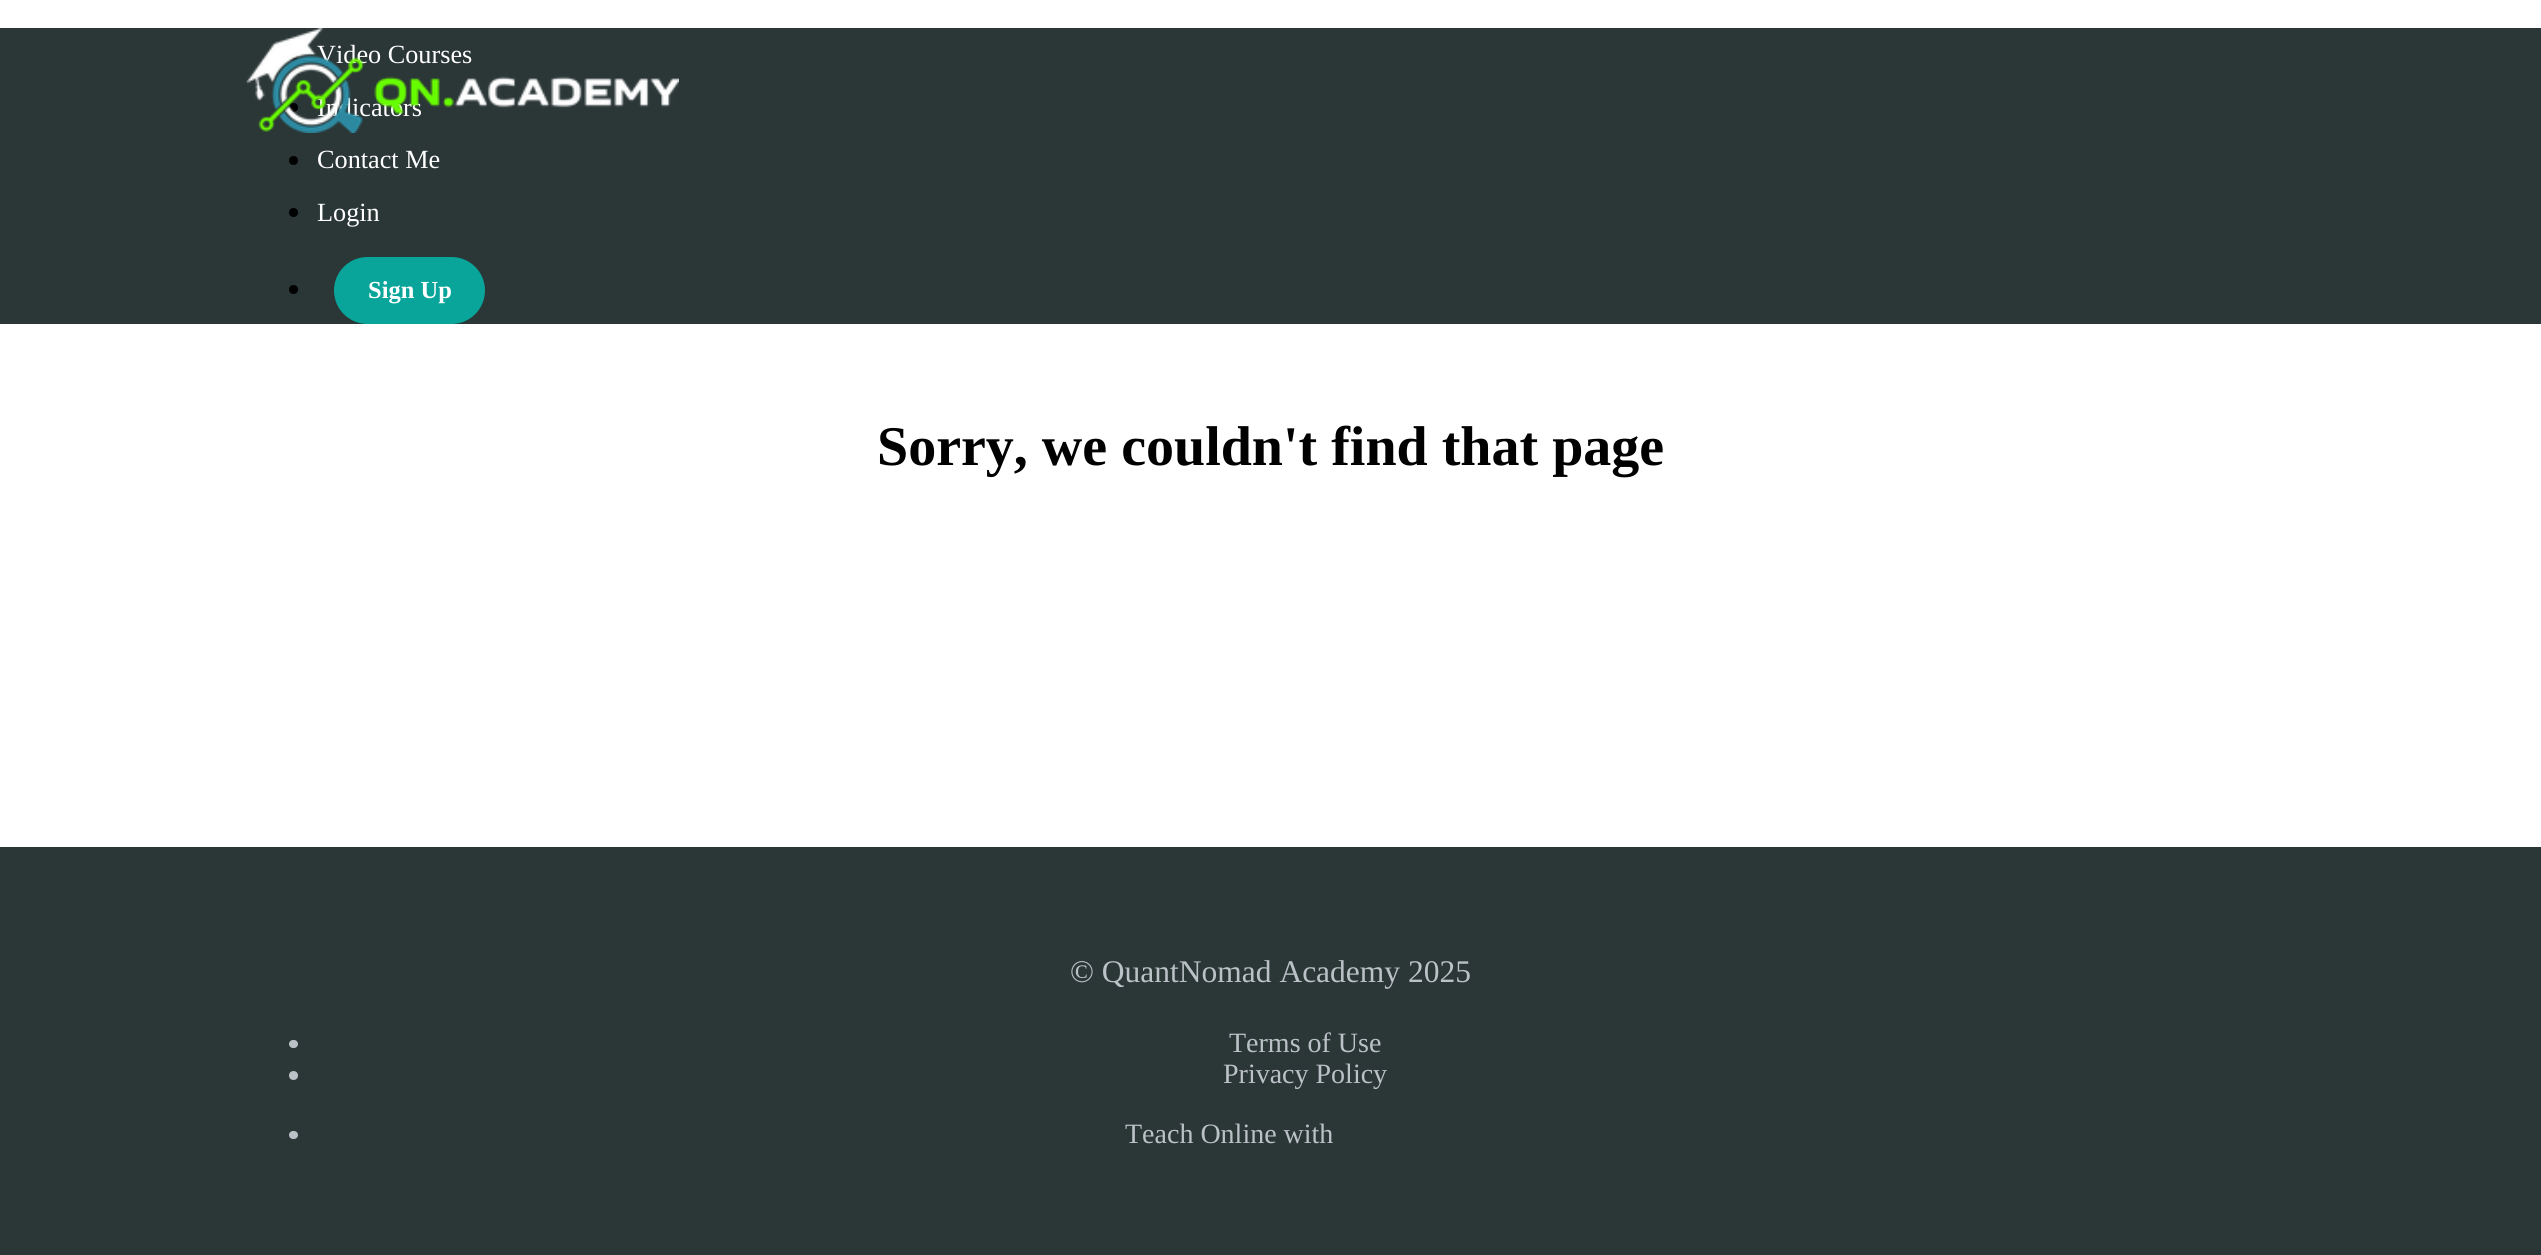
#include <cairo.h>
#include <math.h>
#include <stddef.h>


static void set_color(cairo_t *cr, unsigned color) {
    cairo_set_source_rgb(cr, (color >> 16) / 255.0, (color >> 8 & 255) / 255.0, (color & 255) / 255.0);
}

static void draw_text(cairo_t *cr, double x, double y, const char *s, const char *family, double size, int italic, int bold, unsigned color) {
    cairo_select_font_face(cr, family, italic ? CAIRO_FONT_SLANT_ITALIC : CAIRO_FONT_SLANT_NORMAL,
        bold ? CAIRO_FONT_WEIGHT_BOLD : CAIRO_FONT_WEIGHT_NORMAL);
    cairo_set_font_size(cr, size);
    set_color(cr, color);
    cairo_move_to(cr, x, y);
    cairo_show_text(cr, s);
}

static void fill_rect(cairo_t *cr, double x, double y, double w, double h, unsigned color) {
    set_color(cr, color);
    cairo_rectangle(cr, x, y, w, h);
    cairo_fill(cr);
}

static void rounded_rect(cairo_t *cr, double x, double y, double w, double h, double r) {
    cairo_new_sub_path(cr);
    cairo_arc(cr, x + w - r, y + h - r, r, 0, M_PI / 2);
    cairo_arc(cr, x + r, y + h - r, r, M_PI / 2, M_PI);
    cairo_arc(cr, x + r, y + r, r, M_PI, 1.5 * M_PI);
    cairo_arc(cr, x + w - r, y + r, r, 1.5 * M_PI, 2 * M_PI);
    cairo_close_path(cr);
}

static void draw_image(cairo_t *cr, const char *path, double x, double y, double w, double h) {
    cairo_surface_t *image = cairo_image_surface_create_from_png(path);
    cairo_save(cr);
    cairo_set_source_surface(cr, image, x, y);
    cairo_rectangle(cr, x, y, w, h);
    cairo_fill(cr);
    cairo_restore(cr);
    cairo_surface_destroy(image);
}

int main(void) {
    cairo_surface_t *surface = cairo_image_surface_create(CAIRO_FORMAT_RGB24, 2541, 1255);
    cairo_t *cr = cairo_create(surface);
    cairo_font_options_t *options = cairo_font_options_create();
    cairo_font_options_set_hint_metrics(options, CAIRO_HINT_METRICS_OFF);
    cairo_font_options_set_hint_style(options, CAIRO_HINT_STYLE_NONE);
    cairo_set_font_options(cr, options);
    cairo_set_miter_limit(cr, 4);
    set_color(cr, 0xFFFFFF);
    cairo_paint(cr);
    fill_rect(cr, 0, 28, 2541, 296, 0x2B3636);
    set_color(cr, 0x000000);
    cairo_arc(cr, 293.5, 55.5, 4.5, 0, 2 * M_PI);
    cairo_fill(cr);
    draw_text(cr, 317, 63, "Video Courses", "Liberation Serif", 26.25, 0, 0, 0xFFFFFF);
    set_color(cr, 0x000000);
    cairo_new_path(cr);
    cairo_arc(cr, 293.5, 107.5, 4.5, 0, 2 * M_PI);
    cairo_fill(cr);
    draw_text(cr, 317, 116, "Indicators", "Liberation Serif", 26.25, 0, 0, 0xFFFFFF);
    draw_image(cr, "assets/img1.png", 246, 28, 433, 105);
    set_color(cr, 0x000000);
    cairo_arc(cr, 293.5, 160.5, 4.5, 0, 2 * M_PI);
    cairo_fill(cr);
    draw_text(cr, 317, 168, "Contact Me", "Liberation Serif", 26.25, 0, 0, 0xFFFFFF);
    set_color(cr, 0x000000);
    cairo_new_path(cr);
    cairo_arc(cr, 293.5, 212.5, 4.5, 0, 2 * M_PI);
    cairo_fill(cr);
    draw_text(cr, 317, 221, "Login", "Liberation Serif", 26.25, 0, 0, 0xFFFFFF);
    set_color(cr, 0x000000);
    cairo_new_path(cr);
    cairo_arc(cr, 293.5, 289.5, 4.5, 0, 2 * M_PI);
    cairo_fill(cr);
    set_color(cr, 0x09A59A);
    rounded_rect(cr, 335, 258, 149, 65, 32.5);
    cairo_fill_preserve(cr);
    cairo_stroke(cr);
    draw_text(cr, 368, 298, "Sign Up", "Liberation Serif", 24.5, 0, 1, 0xFFFFFF);
    draw_text(cr, 877, 465, "Sorry, we couldn't find that page", "Liberation Serif", 56, 0, 1, 0x000000);
    fill_rect(cr, 0, 847, 2541, 408, 0x2B3636);
    draw_text(cr, 1070, 982, "© QuantNomad Academy 2025", "Liberation Serif", 31.5, 0, 0, 0xBAC1C7);
    rounded_rect(cr, 289, 1040, 9, 8, 4);
    cairo_fill(cr);
    draw_text(cr, 1229, 1052, "Terms of Use", "Liberation Serif", 28, 0, 0, 0xBAC1C7);
    cairo_new_path(cr);
    cairo_arc(cr, 293.5, 1075.5, 4.5, 0, 2 * M_PI);
    cairo_fill(cr);
    draw_text(cr, 1223, 1083, "Privacy Policy", "Liberation Serif", 28, 0, 0, 0xBAC1C7);
    rounded_rect(cr, 289, 1131, 9, 8, 4);
    cairo_fill(cr);
    draw_text(cr, 1125, 1143, "Teach Online with", "Liberation Serif", 28, 0, 0, 0xBAC1C7);
    cairo_surface_write_to_png(surface, "output.png");
    cairo_font_options_destroy(options);
    cairo_destroy(cr);
    cairo_surface_destroy(surface);
    return 0;
}
